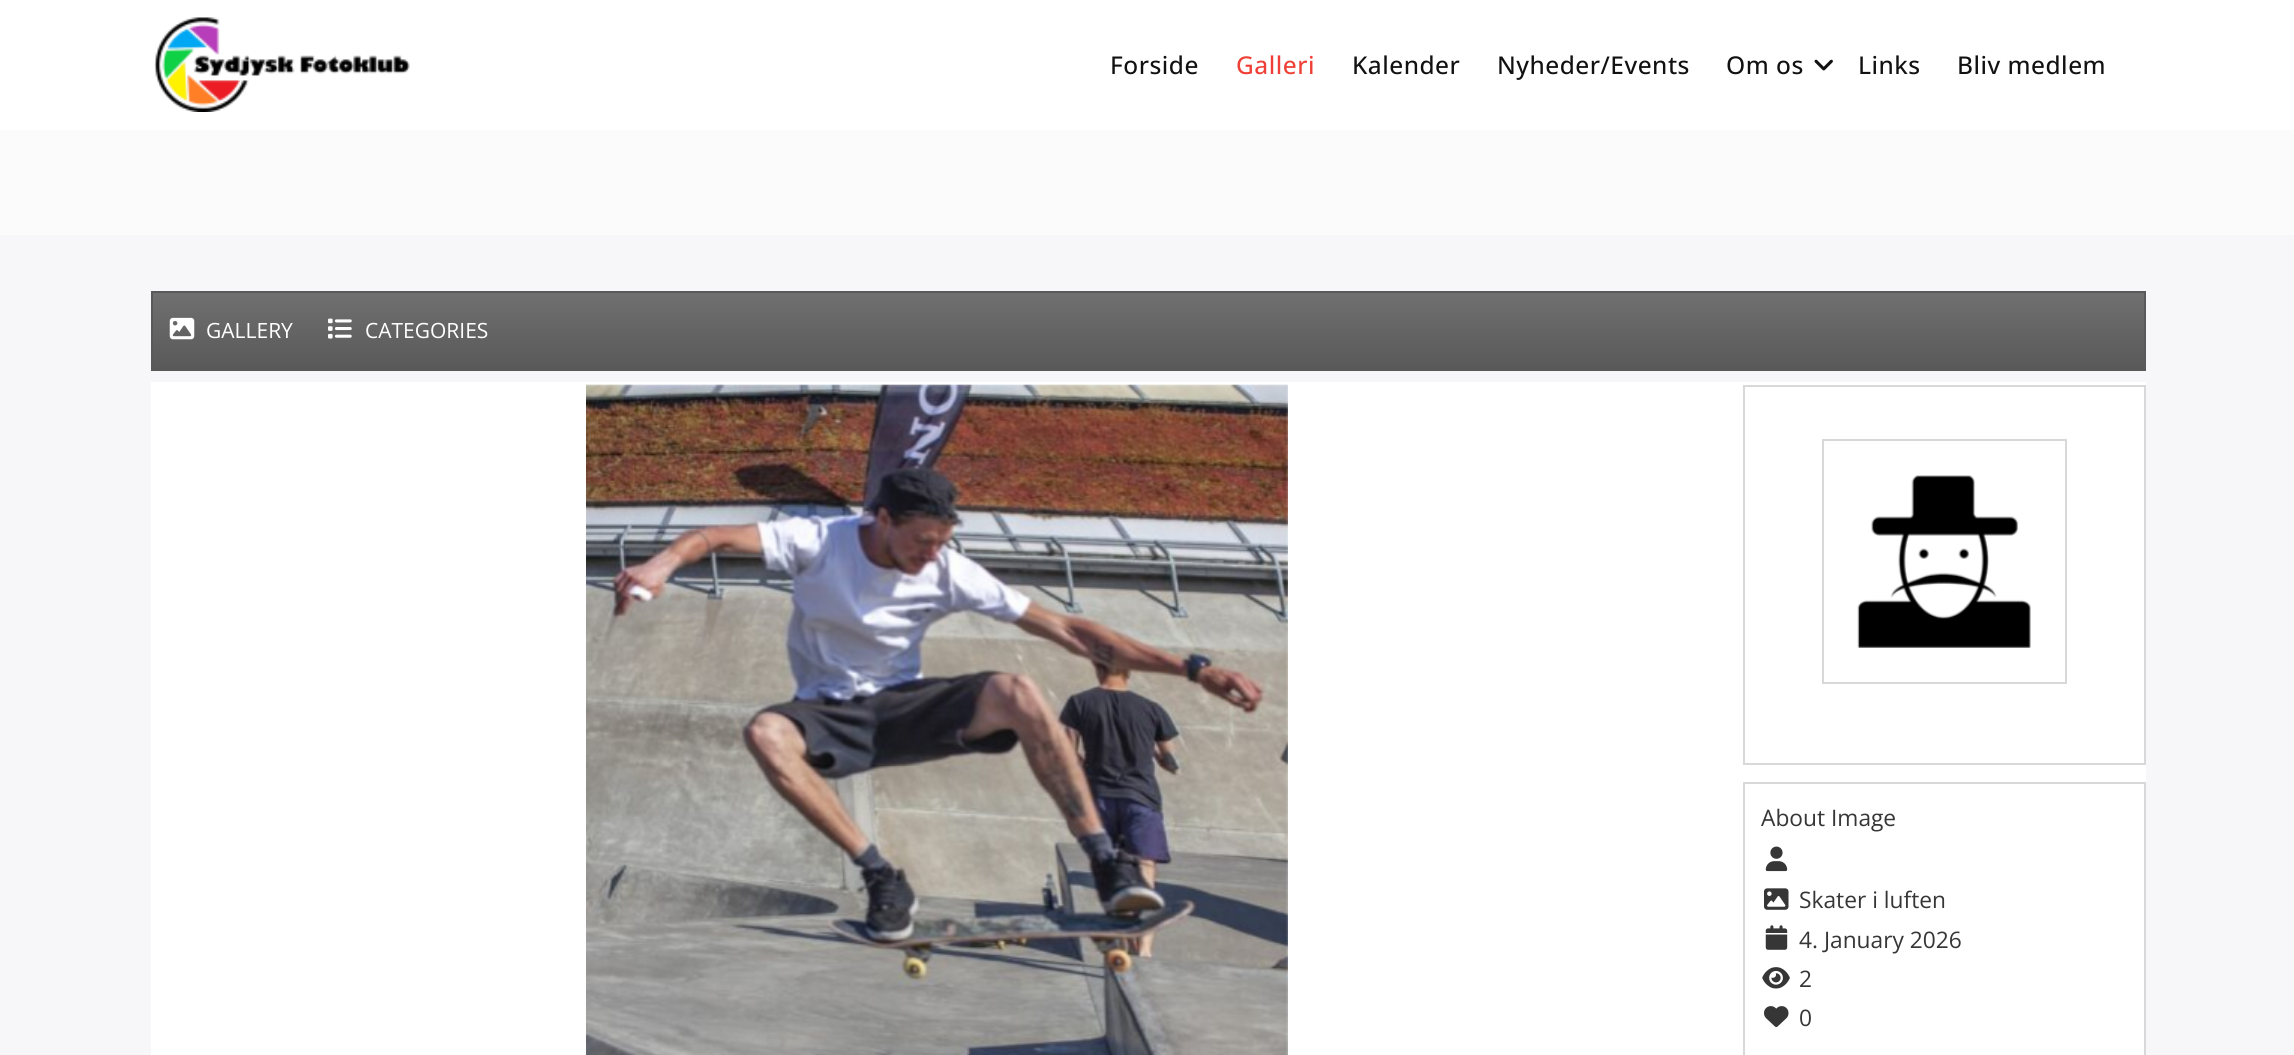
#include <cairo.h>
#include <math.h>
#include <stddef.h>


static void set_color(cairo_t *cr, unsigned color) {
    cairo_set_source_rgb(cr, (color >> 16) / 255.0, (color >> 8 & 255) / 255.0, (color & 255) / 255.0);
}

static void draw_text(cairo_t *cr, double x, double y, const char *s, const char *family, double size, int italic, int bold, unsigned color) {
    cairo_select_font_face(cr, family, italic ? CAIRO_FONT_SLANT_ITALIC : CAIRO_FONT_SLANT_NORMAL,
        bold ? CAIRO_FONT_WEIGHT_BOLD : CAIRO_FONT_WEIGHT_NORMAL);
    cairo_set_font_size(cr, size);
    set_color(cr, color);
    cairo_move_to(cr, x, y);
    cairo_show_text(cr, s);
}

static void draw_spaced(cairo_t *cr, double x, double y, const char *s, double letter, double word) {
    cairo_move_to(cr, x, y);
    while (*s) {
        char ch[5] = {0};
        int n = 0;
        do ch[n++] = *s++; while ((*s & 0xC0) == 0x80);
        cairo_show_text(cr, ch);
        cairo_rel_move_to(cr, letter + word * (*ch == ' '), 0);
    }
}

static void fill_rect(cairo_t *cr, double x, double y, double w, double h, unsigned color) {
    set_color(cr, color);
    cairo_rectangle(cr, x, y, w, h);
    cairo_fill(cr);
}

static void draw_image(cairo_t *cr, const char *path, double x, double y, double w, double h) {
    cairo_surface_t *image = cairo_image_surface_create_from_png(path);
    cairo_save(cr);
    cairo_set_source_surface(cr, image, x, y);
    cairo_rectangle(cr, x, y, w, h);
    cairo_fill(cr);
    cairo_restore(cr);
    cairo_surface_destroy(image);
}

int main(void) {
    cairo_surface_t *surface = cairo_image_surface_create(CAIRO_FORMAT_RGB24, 2294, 1055);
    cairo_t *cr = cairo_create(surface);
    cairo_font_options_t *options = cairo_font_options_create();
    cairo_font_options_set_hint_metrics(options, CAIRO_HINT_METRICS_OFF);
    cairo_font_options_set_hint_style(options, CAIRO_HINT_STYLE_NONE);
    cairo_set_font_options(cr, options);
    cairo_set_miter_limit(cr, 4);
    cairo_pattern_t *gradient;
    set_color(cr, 0xF7F7F9);
    cairo_paint(cr);
    fill_rect(cr, 0, 0, 2294, 130, 0xFFFFFF);
    draw_image(cr, "assets/img1.png", 154, 17, 256, 95);
    cairo_select_font_face(cr, "Open Sans Medium", CAIRO_FONT_SLANT_NORMAL, CAIRO_FONT_WEIGHT_NORMAL);
    cairo_set_font_size(cr, 24.5);
    set_color(cr, 0x111111);
    draw_spaced(cr, 1110, 74, "Forside", 0.5, 0);
    set_color(cr, 0xEE4036);
    draw_spaced(cr, 1236, 74, "Galleri", 0.5, 0);
    set_color(cr, 0x111111);
    draw_spaced(cr, 1352, 74, "Kalender", 0.5, 0);
    draw_spaced(cr, 1497, 74, "Nyheder/Events", 0.5, 0);
    draw_spaced(cr, 1726, 74, "Om os", 0.5, 0);
    draw_image(cr, "assets/img2.png", 1814, 59, 19, 12);
    draw_spaced(cr, 1858, 74, "Links", 0.5, 0);
    draw_spaced(cr, 1957, 74, "Bliv medlem", 0.5, 0);
    fill_rect(cr, 0, 130, 2294, 105, 0xFBFBFC);
    gradient = cairo_pattern_create_linear(1148, 292, 1148, 369);
    cairo_pattern_add_color_stop_rgba(gradient, 0, 0.439, 0.439, 0.439, 1);
    cairo_pattern_add_color_stop_rgba(gradient, 1, 0.349, 0.349, 0.349, 1);
    cairo_set_source(cr, gradient);
    cairo_pattern_destroy(gradient);
    cairo_rectangle(cr, 153, 293, 1991, 76);
    cairo_fill(cr);
    cairo_rectangle(cr, 152, 292, 1993, 78);
    set_color(cr, 0x595959);
    cairo_stroke(cr);
    draw_image(cr, "assets/img3.png", 169, 317, 26, 23);
    draw_text(cr, 206, 338, "GALLERY", "Open Sans", 21, 0, 0, 0xFFFFFF);
    draw_image(cr, "assets/img4.png", 328, 318, 24, 21);
    draw_text(cr, 365, 338, "CATEGORIES", "Open Sans", 21, 0, 0, 0xFFFFFF);
    fill_rect(cr, 151, 382, 1995, 673, 0xFFFFFF);
    draw_image(cr, "assets/img5.png", 586, 384, 702, 671);
    cairo_rectangle(cr, 1744, 386, 401, 378);
    set_color(cr, 0xD8D8D8);
    cairo_stroke(cr);
    cairo_rectangle(cr, 1823, 440, 243, 243);
    cairo_stroke(cr);
    draw_image(cr, "assets/img6.png", 1857, 475, 174, 173);
    cairo_rectangle(cr, 1744, 783, 401, 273);
    cairo_stroke(cr);
    draw_text(cr, 1761, 826, "About Image", "Open Sans", 22.75, 0, 0, 0x363636);
    draw_image(cr, "assets/img7.png", 1765, 846, 23, 26);
    draw_image(cr, "assets/img8.png", 1764, 888, 25, 22);
    draw_text(cr, 1799, 908, "Skater i luften", "Open Sans", 22.75, 0, 0, 0x363636);
    draw_image(cr, "assets/img9.png", 1765, 925, 23, 25);
    draw_text(cr, 1799, 948, "4. January 2026", "Open Sans", 22.75, 0, 0, 0x363636);
    draw_image(cr, "assets/img10.png", 1762, 967, 28, 22);
    draw_text(cr, 1799, 987, "2", "Open Sans", 22.75, 0, 0, 0x363636);
    draw_image(cr, "assets/img11.png", 1764, 1006, 25, 21);
    draw_text(cr, 1799, 1026, "0", "Open Sans", 22.75, 0, 0, 0x363636);
    cairo_surface_write_to_png(surface, "output.png");
    cairo_font_options_destroy(options);
    cairo_destroy(cr);
    cairo_surface_destroy(surface);
    return 0;
}
